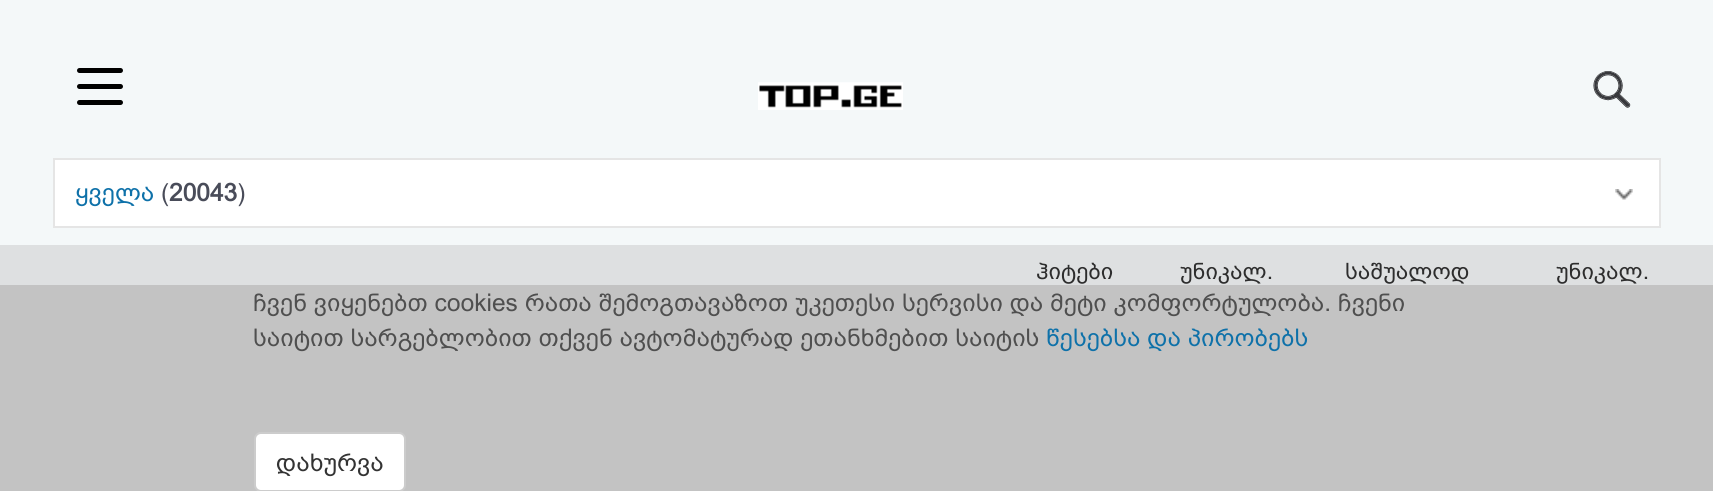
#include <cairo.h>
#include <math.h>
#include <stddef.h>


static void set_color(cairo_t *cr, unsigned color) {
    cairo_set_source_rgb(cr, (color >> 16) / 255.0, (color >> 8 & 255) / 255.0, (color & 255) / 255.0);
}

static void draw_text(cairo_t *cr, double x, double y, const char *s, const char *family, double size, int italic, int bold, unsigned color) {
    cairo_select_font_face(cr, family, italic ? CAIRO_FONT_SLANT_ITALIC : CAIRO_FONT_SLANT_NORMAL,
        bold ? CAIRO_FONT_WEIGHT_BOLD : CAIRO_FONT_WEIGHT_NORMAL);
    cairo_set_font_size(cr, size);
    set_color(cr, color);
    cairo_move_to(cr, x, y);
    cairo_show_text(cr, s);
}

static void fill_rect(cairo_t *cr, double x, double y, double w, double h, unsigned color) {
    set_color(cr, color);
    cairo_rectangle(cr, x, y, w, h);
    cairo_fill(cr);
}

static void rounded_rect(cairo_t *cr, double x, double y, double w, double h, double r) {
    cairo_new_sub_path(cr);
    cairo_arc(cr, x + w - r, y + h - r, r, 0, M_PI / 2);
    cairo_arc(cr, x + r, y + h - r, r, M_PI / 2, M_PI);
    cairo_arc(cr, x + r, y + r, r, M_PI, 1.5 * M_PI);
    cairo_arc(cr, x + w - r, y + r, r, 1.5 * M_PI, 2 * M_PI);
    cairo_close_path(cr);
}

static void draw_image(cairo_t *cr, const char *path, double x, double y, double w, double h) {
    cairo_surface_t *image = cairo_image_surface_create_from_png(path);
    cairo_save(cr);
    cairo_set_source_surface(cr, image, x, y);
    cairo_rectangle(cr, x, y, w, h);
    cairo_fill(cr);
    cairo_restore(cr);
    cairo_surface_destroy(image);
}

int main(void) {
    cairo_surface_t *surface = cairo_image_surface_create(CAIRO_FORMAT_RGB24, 1713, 491);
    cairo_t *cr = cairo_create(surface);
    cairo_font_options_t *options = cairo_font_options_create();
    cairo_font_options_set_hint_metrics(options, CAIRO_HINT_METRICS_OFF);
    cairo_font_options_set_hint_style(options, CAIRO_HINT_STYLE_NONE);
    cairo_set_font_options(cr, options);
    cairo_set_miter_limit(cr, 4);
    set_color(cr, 0xF4F8F9);
    cairo_paint(cr);
    set_color(cr, 0x000000);
    rounded_rect(cr, 77, 68, 46, 5, 2.5);
    cairo_fill(cr);
    rounded_rect(cr, 77, 84, 46, 5, 2.5);
    cairo_fill(cr);
    rounded_rect(cr, 77, 100, 46, 5, 2.5);
    cairo_fill(cr);
    draw_image(cr, "assets/img1.png", 758, 82, 145, 28);
    draw_image(cr, "assets/img2.png", 1593, 71, 38, 37);
    set_color(cr, 0xFFFFFF);
    cairo_rectangle(cr, 54, 159, 1606, 68);
    cairo_fill_preserve(cr);
    set_color(cr, 0xE5E5E5);
    cairo_stroke(cr);
    draw_text(cr, 75, 201, "ყველა", "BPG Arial", 24.5, 0, 0, 0x0E71A9);
    draw_text(cr, 161, 201, "(", "BPG Arial", 24.5, 0, 0, 0x494C59);
    draw_text(cr, 169, 201, "20043", "BPG Arial", 24.5, 0, 1, 0x494C59);
    draw_text(cr, 237, 201, ")", "BPG Arial", 24.5, 0, 0, 0x494C59);
    draw_image(cr, "assets/img3.png", 1615, 189, 18, 11);
    fill_rect(cr, 0, 245, 1713, 40, 0xDEE0E1);
    draw_text(cr, 1036, 279, "ჰიტები", "BPG Arial", 22.75, 0, 0, 0x2D2D2D);
    draw_text(cr, 1180, 279, "უნიკალ.", "BPG Arial", 22.75, 0, 0, 0x2D2D2D);
    draw_text(cr, 1345, 279, "საშუალოდ", "BPG Arial", 22.75, 0, 0, 0x2D2D2D);
    draw_text(cr, 1556, 279, "უნიკალ.", "BPG Arial", 22.75, 0, 0, 0x2D2D2D);
    fill_rect(cr, 0, 285, 1713, 206, 0xC3C3C3);
    draw_text(cr, 253, 311, "ჩვენ ვიყენებთ cookies რათა შემოგთავაზოთ უკეთესი სერვისი და მეტი კომფორტულობა. ჩვენი", "BPG Arial", 24.5, 0, 0, 0x4F4F4F);
    draw_text(cr, 253, 346, "საიტით სარგებლობით თქვენ ავტომატურად ეთანხმებით საიტის", "BPG Arial", 24.5, 0, 0, 0x4F4F4F);
    draw_text(cr, 1046, 346, "წესებსა და პირობებს", "BPG Arial", 24.5, 0, 0, 0x0E71A9);
    set_color(cr, 0xFFFFFF);
    rounded_rect(cr, 255, 433, 150, 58, 6);
    cairo_fill_preserve(cr);
    set_color(cr, 0xCCCCCC);
    cairo_stroke(cr);
    draw_text(cr, 276, 471, "დახურვა", "BPG Arial", 24.5, 0, 0, 0x333333);
    cairo_surface_write_to_png(surface, "output.png");
    cairo_font_options_destroy(options);
    cairo_destroy(cr);
    cairo_surface_destroy(surface);
    return 0;
}
